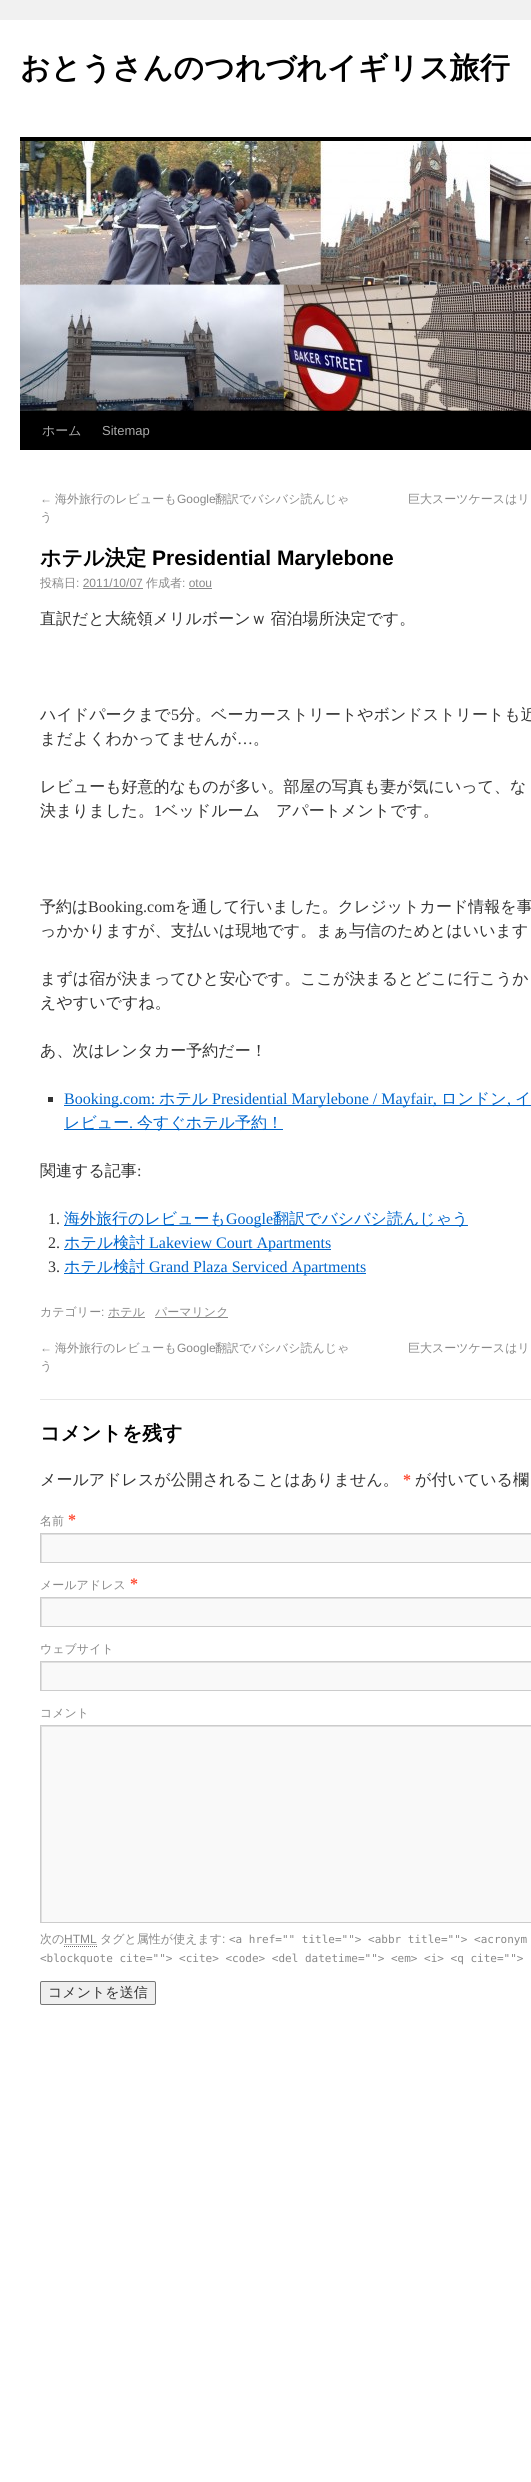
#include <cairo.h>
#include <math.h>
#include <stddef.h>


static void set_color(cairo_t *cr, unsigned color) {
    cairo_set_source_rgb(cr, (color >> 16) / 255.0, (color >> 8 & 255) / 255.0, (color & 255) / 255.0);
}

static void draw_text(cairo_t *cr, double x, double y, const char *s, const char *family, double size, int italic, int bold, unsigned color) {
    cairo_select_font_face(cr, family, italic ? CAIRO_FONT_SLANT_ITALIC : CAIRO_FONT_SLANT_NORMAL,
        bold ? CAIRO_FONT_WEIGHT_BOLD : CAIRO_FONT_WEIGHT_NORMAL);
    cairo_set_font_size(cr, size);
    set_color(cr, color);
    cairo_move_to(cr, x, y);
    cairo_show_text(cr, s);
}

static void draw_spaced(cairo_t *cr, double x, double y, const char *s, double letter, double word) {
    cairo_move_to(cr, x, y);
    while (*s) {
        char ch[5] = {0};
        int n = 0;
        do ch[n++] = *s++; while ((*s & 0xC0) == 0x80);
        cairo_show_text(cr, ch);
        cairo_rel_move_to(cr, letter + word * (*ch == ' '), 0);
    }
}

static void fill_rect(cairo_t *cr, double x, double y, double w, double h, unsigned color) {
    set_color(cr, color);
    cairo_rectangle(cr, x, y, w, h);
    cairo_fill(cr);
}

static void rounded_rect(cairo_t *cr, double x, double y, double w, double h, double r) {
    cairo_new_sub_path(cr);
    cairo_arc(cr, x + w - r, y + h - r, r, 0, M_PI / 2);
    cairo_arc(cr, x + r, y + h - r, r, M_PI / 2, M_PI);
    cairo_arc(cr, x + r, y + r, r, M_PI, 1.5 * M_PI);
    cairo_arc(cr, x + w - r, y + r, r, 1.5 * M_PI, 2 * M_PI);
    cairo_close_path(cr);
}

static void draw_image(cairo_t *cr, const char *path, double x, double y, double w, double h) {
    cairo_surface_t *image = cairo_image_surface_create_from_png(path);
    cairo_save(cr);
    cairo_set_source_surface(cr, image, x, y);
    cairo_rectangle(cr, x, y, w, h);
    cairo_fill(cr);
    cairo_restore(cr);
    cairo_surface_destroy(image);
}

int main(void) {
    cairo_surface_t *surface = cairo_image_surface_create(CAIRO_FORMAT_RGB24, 531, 2482);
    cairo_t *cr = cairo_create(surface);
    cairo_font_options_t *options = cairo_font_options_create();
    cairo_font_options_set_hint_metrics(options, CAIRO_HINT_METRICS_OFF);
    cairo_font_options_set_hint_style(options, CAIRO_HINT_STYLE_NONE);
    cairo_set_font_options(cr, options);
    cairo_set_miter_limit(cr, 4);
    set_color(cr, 0xF1F1F1);
    cairo_paint(cr);
    fill_rect(cr, 0, 20, 531, 2462, 0xFFFFFF);
    draw_text(cr, 20, 78, "おとうさんのつれづれイギリス旅行", "WenQuanYi Zen Hei", 30, 0, 1, 0x000000);
    fill_rect(cr, 20, 137, 511, 4, 0x000000);
    fill_rect(cr, 20, 411, 511, 39, 0x000000);
    draw_image(cr, "assets/img1.png", 20, 141, 511, 270);
    draw_text(cr, 42, 435, "ホーム", "WenQuanYi Zen Hei Medium", 13, 0, 0, 0xAAAAAA);
    draw_text(cr, 102, 435, "Sitemap", "Liberation Sans", 13, 0, 0, 0xAAAAAA);
    draw_text(cr, 40, 503, "←", "Liberation Sans", 12, 0, 0, 0x888888);
    draw_text(cr, 55, 503, "海外旅行のレビューも", "WenQuanYi Zen Hei Medium", 12, 0, 0, 0x888888);
    draw_text(cr, 177, 503, "Google", "Liberation Sans", 12, 0, 0, 0x888888);
    draw_text(cr, 215, 503, "翻訳でバシバシ読んじゃ", "WenQuanYi Zen Hei Medium", 12, 0, 0, 0x888888);
    draw_text(cr, 40, 521, "う", "WenQuanYi Zen Hei Medium", 12, 0, 0, 0x888888);
    draw_text(cr, 408, 503, "巨大スーツケースはリ", "WenQuanYi Zen Hei Medium", 12, 0, 0, 0x888888);
    draw_text(cr, 40, 565, "ホテル決定", "WenQuanYi Zen Hei", 21, 0, 1, 0x000000);
    draw_text(cr, 152, 565, "Presidential Marylebone", "Liberation Sans", 21, 0, 1, 0x000000);
    draw_text(cr, 40, 587, "投稿日", "WenQuanYi Zen Hei Medium", 12, 0, 0, 0x888888);
    draw_text(cr, 76, 587, ": 2011/10/07", "Liberation Sans", 12, 0, 0, 0x888888);
    draw_text(cr, 146, 587, "作成者", "WenQuanYi Zen Hei Medium", 12, 0, 0, 0x888888);
    draw_text(cr, 182, 587, ": otou", "Liberation Sans", 12, 0, 0, 0x888888);
    fill_rect(cr, 83, 588, 60, 1, 0x888888);
    fill_rect(cr, 189, 588, 23, 1, 0x888888);
    cairo_select_font_face(cr, "WenQuanYi Zen Hei Medium", CAIRO_FONT_SLANT_NORMAL, CAIRO_FONT_WEIGHT_NORMAL);
    cairo_set_font_size(cr, 16);
    set_color(cr, 0x333333);
    draw_spaced(cr, 40, 624, "直訳だと大統領メリルボーンｗ 宿泊場所決定です。", 0, -1);
    draw_text(cr, 40, 720, "ハイドパークまで", "WenQuanYi Zen Hei Medium", 16, 0, 0, 0x333333);
    draw_text(cr, 171, 720, "5", "Liberation Serif", 16, 0, 0, 0x333333);
    draw_text(cr, 179, 720, "分。ベーカーストリートやボンドストリートも近", "WenQuanYi Zen Hei Medium", 16, 0, 0, 0x333333);
    draw_text(cr, 40, 744, "まだよくわかってませんが", "WenQuanYi Zen Hei Medium", 16, 0, 0, 0x333333);
    draw_text(cr, 237, 744, "…", "Liberation Serif", 16, 0, 0, 0x333333);
    draw_text(cr, 253, 744, "。", "WenQuanYi Zen Hei Medium", 16, 0, 0, 0x333333);
    draw_text(cr, 40, 792, "レビューも好意的なものが多い。部屋の写真も妻が気にいって、な", "WenQuanYi Zen Hei Medium", 16, 0, 0, 0x333333);
    draw_text(cr, 40, 816, "決まりました。", "WenQuanYi Zen Hei Medium", 16, 0, 0, 0x333333);
    draw_text(cr, 154, 816, "1", "Liberation Serif", 16, 0, 0, 0x333333);
    draw_text(cr, 162, 816, "ベッドルーム　アパートメントです。", "WenQuanYi Zen Hei Medium", 16, 0, 0, 0x333333);
    draw_text(cr, 40, 912, "予約は", "WenQuanYi Zen Hei Medium", 16, 0, 0, 0x333333);
    draw_text(cr, 88, 912, "Booking.com", "Liberation Serif", 16, 0, 0, 0x333333);
    draw_text(cr, 175, 912, "を通して行いました。クレジットカード情報を事", "WenQuanYi Zen Hei Medium", 16, 0, 0, 0x333333);
    draw_text(cr, 40, 936, "っかかりますが、支払いは現地です。まぁ与信のためとはいいます", "WenQuanYi Zen Hei Medium", 16, 0, 0, 0x333333);
    draw_text(cr, 40, 984, "まずは宿が決まってひと安心です。ここが決まるとどこに行こうか", "WenQuanYi Zen Hei Medium", 16, 0, 0, 0x333333);
    draw_text(cr, 40, 1008, "えやすいですね。", "WenQuanYi Zen Hei Medium", 16, 0, 0, 0x333333);
    draw_text(cr, 40, 1056, "あ、次はレンタカー予約だー！", "WenQuanYi Zen Hei Medium", 16, 0, 0, 0x333333);
    fill_rect(cr, 48, 1097, 5, 5, 0x333333);
    fill_rect(cr, 64, 1105, 467, 1, 0x0066CC);
    draw_text(cr, 64, 1104, "Booking.com:", "Liberation Serif", 16, 0, 0, 0x0066CC);
    draw_text(cr, 159, 1104, "ホテル", "WenQuanYi Zen Hei Medium", 16, 0, 0, 0x0066CC);
    draw_text(cr, 212, 1104, "Presidential Marylebone / Mayfair,", "Liberation Serif", 16, 0, 0, 0x0066CC);
    draw_text(cr, 441, 1104, "ロンドン", "WenQuanYi Zen Hei Medium", 16, 0, 0, 0x0066CC);
    draw_text(cr, 515, 1104, "イ", "WenQuanYi Zen Hei Medium", 16, 0, 0, 0x0066CC);
    draw_text(cr, 507, 1104, ",", "Liberation Serif", 16, 0, 0, 0x0066CC);
    fill_rect(cr, 64, 1129, 219, 1, 0x0066CC);
    draw_text(cr, 64, 1128, "レビュー", "WenQuanYi Zen Hei Medium", 16, 0, 0, 0x0066CC);
    draw_text(cr, 129, 1128, ".", "Liberation Serif", 16, 0, 0, 0x0066CC);
    draw_text(cr, 137, 1128, "今すぐホテル予約！", "WenQuanYi Zen Hei Medium", 16, 0, 0, 0x0066CC);
    draw_text(cr, 40, 1176, "関連する記事", "WenQuanYi Zen Hei Medium", 16, 0, 0, 0x333333);
    draw_text(cr, 137, 1176, ":", "Liberation Serif", 16, 0, 0, 0x333333);
    draw_text(cr, 48, 1224, "1.", "Liberation Serif", 16, 0, 0, 0x333333);
    fill_rect(cr, 64, 1225, 404, 1, 0x0066CC);
    draw_text(cr, 64, 1224, "海外旅行のレビューも", "WenQuanYi Zen Hei Medium", 16, 0, 0, 0x0066CC);
    draw_text(cr, 226, 1224, "Google", "Liberation Serif", 16, 0, 0, 0x0066CC);
    draw_text(cr, 273, 1224, "翻訳でバシバシ読んじゃう", "WenQuanYi Zen Hei Medium", 16, 0, 0, 0x0066CC);
    draw_text(cr, 48, 1248, "2.", "Liberation Serif", 16, 0, 0, 0x333333);
    fill_rect(cr, 64, 1249, 267, 1, 0x0066CC);
    draw_text(cr, 64, 1248, "ホテル検討", "WenQuanYi Zen Hei Medium", 16, 0, 0, 0x0066CC);
    draw_text(cr, 149, 1248, "Lakeview Court Apartments", "Liberation Serif", 16, 0, 0, 0x0066CC);
    draw_text(cr, 48, 1272, "3.", "Liberation Serif", 16, 0, 0, 0x333333);
    fill_rect(cr, 64, 1273, 302, 1, 0x0066CC);
    draw_text(cr, 64, 1272, "ホテル検討", "WenQuanYi Zen Hei Medium", 16, 0, 0, 0x0066CC);
    draw_text(cr, 149, 1272, "Grand Plaza Serviced Apartments", "Liberation Serif", 16, 0, 0, 0x0066CC);
    draw_text(cr, 40, 1316, "カテゴリー", "WenQuanYi Zen Hei Medium", 12, 0, 0, 0x888888);
    draw_text(cr, 101, 1316, ":", "Liberation Sans", 12, 0, 0, 0x888888);
    fill_rect(cr, 108, 1317, 37, 1, 0x888888);
    draw_text(cr, 108, 1316, "ホテル", "WenQuanYi Zen Hei Medium", 12, 0, 0, 0x888888);
    fill_rect(cr, 155, 1317, 73, 1, 0x888888);
    draw_text(cr, 155, 1316, "パーマリンク", "WenQuanYi Zen Hei Medium", 12, 0, 0, 0x888888);
    draw_text(cr, 40, 1352, "←", "Liberation Sans", 12, 0, 0, 0x888888);
    draw_text(cr, 55, 1352, "海外旅行のレビューも", "WenQuanYi Zen Hei Medium", 12, 0, 0, 0x888888);
    draw_text(cr, 177, 1352, "Google", "Liberation Sans", 12, 0, 0, 0x888888);
    draw_text(cr, 215, 1352, "翻訳でバシバシ読んじゃ", "WenQuanYi Zen Hei Medium", 12, 0, 0, 0x888888);
    draw_text(cr, 40, 1370, "う", "WenQuanYi Zen Hei Medium", 12, 0, 0, 0x888888);
    draw_text(cr, 408, 1352, "巨大スーツケースはリ", "WenQuanYi Zen Hei Medium", 12, 0, 0, 0x888888);
    fill_rect(cr, 40, 1399, 491, 1, 0xE7E7E7);
    draw_text(cr, 40, 1440, "コメントを残す", "WenQuanYi Zen Hei", 20, 0, 1, 0x000000);
    draw_text(cr, 40, 1485, "メールアドレスが公開されることはありません。", "WenQuanYi Zen Hei Medium", 16, 0, 0, 0x333333);
    draw_text(cr, 403, 1485, "*", "Liberation Serif", 16, 0, 1, 0xFF4B33);
    draw_text(cr, 415, 1485, "が付いている欄", "WenQuanYi Zen Hei Medium", 16, 0, 0, 0x333333);
    draw_text(cr, 40, 1525, "名前", "WenQuanYi Zen Hei Medium", 12, 0, 0, 0x888888);
    draw_text(cr, 68, 1525, "*", "Liberation Serif", 16, 0, 1, 0xFF4B33);
    fill_rect(cr, 42, 1535, 489, 27, 0xF9F9F9);
    cairo_save(cr);
    cairo_rectangle(cr, 41, 1534, 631, 28);
    cairo_clip(cr);
    set_color(cr, 0xE0E0E0);
    cairo_set_fill_rule(cr, CAIRO_FILL_RULE_EVEN_ODD);
    cairo_new_path(cr);
    cairo_move_to(cr, -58, 1435);
    cairo_line_to(cr, 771, 1435);
    cairo_line_to(cr, 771, 1661);
    cairo_line_to(cr, -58, 1661);
    cairo_close_path(cr);
    cairo_move_to(cr, 42, 1535);
    cairo_line_to(cr, 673, 1535);
    cairo_line_to(cr, 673, 1563);
    cairo_line_to(cr, 42, 1563);
    cairo_close_path(cr);
    cairo_fill(cr);
    cairo_restore(cr);
    cairo_rectangle(cr, 40.5, 1533.5, 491, 29);
    set_color(cr, 0xCCCCCC);
    cairo_set_line_width(cr, 1);
    cairo_stroke(cr);
    draw_text(cr, 40, 1589, "メールアドレス", "WenQuanYi Zen Hei Medium", 12, 0, 0, 0x888888);
    draw_text(cr, 130, 1589, "*", "Liberation Serif", 16, 0, 1, 0xFF4B33);
    fill_rect(cr, 42, 1599, 489, 27, 0xF9F9F9);
    cairo_save(cr);
    cairo_rectangle(cr, 41, 1598, 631, 28);
    cairo_clip(cr);
    set_color(cr, 0xE0E0E0);
    cairo_set_fill_rule(cr, CAIRO_FILL_RULE_EVEN_ODD);
    cairo_new_path(cr);
    cairo_move_to(cr, -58, 1499);
    cairo_line_to(cr, 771, 1499);
    cairo_line_to(cr, 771, 1725);
    cairo_line_to(cr, -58, 1725);
    cairo_close_path(cr);
    cairo_move_to(cr, 42, 1599);
    cairo_line_to(cr, 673, 1599);
    cairo_line_to(cr, 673, 1627);
    cairo_line_to(cr, 42, 1627);
    cairo_close_path(cr);
    cairo_fill(cr);
    cairo_restore(cr);
    cairo_rectangle(cr, 40.5, 1597.5, 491, 29);
    set_color(cr, 0xCCCCCC);
    cairo_stroke(cr);
    draw_text(cr, 40, 1653, "ウェブサイト", "WenQuanYi Zen Hei Medium", 12, 0, 0, 0x888888);
    fill_rect(cr, 42, 1663, 489, 27, 0xF9F9F9);
    cairo_save(cr);
    cairo_rectangle(cr, 41, 1662, 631, 28);
    cairo_clip(cr);
    set_color(cr, 0xE0E0E0);
    cairo_set_fill_rule(cr, CAIRO_FILL_RULE_EVEN_ODD);
    cairo_new_path(cr);
    cairo_move_to(cr, -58, 1563);
    cairo_line_to(cr, 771, 1563);
    cairo_line_to(cr, 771, 1789);
    cairo_line_to(cr, -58, 1789);
    cairo_close_path(cr);
    cairo_move_to(cr, 42, 1663);
    cairo_line_to(cr, 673, 1663);
    cairo_line_to(cr, 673, 1691);
    cairo_line_to(cr, 42, 1691);
    cairo_close_path(cr);
    cairo_fill(cr);
    cairo_restore(cr);
    cairo_rectangle(cr, 40.5, 1661.5, 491, 29);
    set_color(cr, 0xCCCCCC);
    cairo_stroke(cr);
    draw_text(cr, 40, 1717, "コメント", "WenQuanYi Zen Hei Medium", 12, 0, 0, 0x888888);
    fill_rect(cr, 42, 1727, 489, 195, 0xF9F9F9);
    cairo_save(cr);
    cairo_rectangle(cr, 41, 1726, 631, 196);
    cairo_clip(cr);
    set_color(cr, 0xE0E0E0);
    cairo_set_fill_rule(cr, CAIRO_FILL_RULE_EVEN_ODD);
    cairo_new_path(cr);
    cairo_move_to(cr, -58, 1627);
    cairo_line_to(cr, 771, 1627);
    cairo_line_to(cr, 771, 2021);
    cairo_line_to(cr, -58, 2021);
    cairo_close_path(cr);
    cairo_move_to(cr, 42, 1727);
    cairo_line_to(cr, 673, 1727);
    cairo_line_to(cr, 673, 1923);
    cairo_line_to(cr, 42, 1923);
    cairo_close_path(cr);
    cairo_fill(cr);
    cairo_restore(cr);
    cairo_rectangle(cr, 40.5, 1725.5, 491, 197);
    set_color(cr, 0xCCCCCC);
    cairo_stroke(cr);
    draw_text(cr, 40, 1943, "次の", "WenQuanYi Zen Hei Medium", 12, 0, 0, 0x888888);
    draw_text(cr, 64, 1943, "HTML", "Liberation Sans", 12, 0, 0, 0x888888);
    cairo_new_path(cr);
    cairo_move_to(cr, 64, 1946.5);
    cairo_line_to(cr, 97, 1946.5);
    set_color(cr, 0x666666);
    cairo_set_dash(cr, (double[]){1, 1}, 2, 0);
    cairo_stroke(cr);
    cairo_new_path(cr);
    cairo_move_to(cr, 64.5, 1944.5);
    cairo_line_to(cr, 97, 1944.5);
    set_color(cr, 0x888888);
    cairo_stroke(cr);
    draw_text(cr, 100, 1943, "タグと属性が使えます", "WenQuanYi Zen Hei Medium", 12, 0, 0, 0x888888);
    draw_text(cr, 222, 1943, ":", "Liberation Sans", 12, 0, 0, 0x888888);
    draw_text(cr, 229, 1943, "<a href=\"\" title=\"\"> <abbr title=\"\"> <acronym", "DejaVu Sans Mono", 11, 0, 0, 0x888888);
    draw_text(cr, 40, 1962, "<blockquote cite=\"\"> <cite> <code> <del datetime=\"\"> <em> <i> <q cite=\"\">", "DejaVu Sans Mono", 11, 0, 0, 0x888888);
    set_color(cr, 0xEFEFEF);
    rounded_rect(cr, 40.5, 1981.5, 115, 23, 1.5);
    cairo_fill_preserve(cr);
    set_color(cr, 0x767676);
    cairo_set_dash(cr, NULL, 0, 0);
    cairo_stroke(cr);
    draw_text(cr, 48, 1997, "コメントを送信", "WenQuanYi Zen Hei Medium", 14, 0, 0, 0x333333);
    cairo_surface_write_to_png(surface, "output.png");
    cairo_font_options_destroy(options);
    cairo_destroy(cr);
    cairo_surface_destroy(surface);
    return 0;
}
